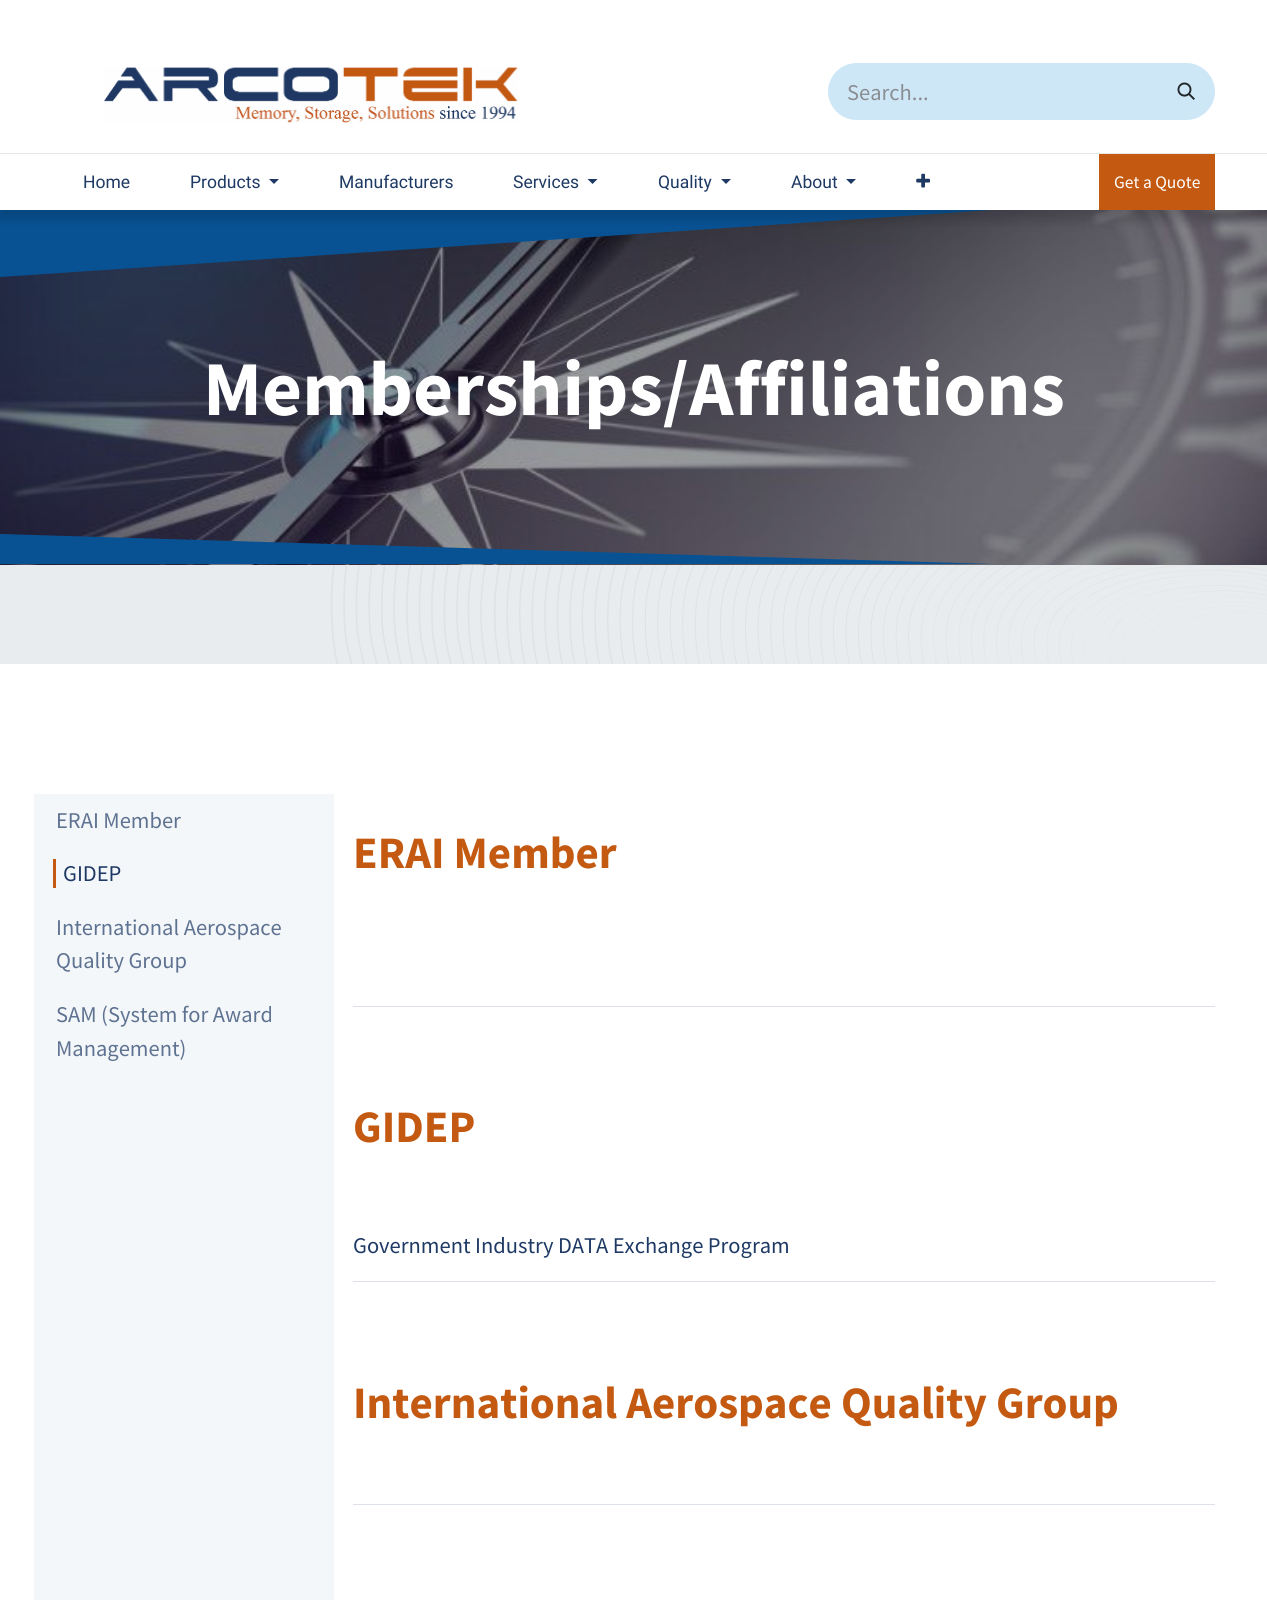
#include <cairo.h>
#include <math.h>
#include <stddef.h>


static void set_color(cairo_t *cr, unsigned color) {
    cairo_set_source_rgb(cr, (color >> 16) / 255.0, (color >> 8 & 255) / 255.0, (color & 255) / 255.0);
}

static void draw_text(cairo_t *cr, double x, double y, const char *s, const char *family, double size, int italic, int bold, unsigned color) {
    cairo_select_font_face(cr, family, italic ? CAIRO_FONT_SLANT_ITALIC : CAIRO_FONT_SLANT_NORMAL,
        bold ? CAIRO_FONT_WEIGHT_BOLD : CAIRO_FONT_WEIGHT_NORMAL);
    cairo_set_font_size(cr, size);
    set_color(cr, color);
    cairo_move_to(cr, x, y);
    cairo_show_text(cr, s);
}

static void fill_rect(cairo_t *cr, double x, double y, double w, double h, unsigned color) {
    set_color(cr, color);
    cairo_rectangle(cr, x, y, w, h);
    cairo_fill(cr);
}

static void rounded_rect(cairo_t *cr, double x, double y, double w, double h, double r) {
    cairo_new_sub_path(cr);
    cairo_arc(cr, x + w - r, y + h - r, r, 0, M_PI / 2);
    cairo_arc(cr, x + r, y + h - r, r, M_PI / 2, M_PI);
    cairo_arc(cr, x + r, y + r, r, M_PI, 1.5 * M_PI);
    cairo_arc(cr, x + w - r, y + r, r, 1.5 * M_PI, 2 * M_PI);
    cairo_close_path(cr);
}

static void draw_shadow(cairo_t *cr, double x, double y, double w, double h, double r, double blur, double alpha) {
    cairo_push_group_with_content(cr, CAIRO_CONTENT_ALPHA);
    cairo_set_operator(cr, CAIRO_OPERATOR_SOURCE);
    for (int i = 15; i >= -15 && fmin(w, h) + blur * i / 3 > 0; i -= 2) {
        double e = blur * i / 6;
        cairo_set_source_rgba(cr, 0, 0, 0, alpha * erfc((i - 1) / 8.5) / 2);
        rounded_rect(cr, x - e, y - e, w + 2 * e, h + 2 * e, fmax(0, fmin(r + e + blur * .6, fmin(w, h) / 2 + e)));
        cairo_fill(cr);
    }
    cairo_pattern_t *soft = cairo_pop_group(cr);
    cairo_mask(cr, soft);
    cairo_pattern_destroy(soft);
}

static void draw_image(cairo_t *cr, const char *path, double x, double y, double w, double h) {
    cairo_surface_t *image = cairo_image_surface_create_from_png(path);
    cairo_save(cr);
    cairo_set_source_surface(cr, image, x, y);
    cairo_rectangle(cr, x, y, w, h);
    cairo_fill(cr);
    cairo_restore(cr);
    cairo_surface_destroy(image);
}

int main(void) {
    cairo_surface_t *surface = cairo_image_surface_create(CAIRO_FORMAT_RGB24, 1267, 1600);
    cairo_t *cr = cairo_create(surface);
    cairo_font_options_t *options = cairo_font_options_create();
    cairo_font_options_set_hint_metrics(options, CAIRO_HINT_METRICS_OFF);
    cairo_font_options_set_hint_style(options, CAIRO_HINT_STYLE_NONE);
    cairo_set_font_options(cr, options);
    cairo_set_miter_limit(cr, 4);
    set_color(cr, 0xFFFFFF);
    cairo_paint(cr);
    draw_image(cr, "assets/img4.png", 0, 210, 1267, 355);
    set_color(cr, 0x085294);
    cairo_new_path(cr);
    cairo_move_to(cr, 0, 210);
    cairo_line_to(cr, 0, 277);
    cairo_line_to(cr, 992, 210);
    cairo_close_path(cr);
    cairo_fill(cr);
    cairo_save(cr);
    cairo_rectangle(cr, 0, 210, 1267, 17);
    cairo_clip(cr);
    set_color(cr, 0x000000);
    draw_shadow(cr, -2, -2, 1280, 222, 0, 6, 0.15);
    cairo_restore(cr);
    draw_image(cr, "assets/img1.png", 104, 67, 414, 56);
    set_color(cr, 0xCEE7F7);
    cairo_new_path(cr);
    cairo_move_to(cr, 856.5, 63);
    cairo_line_to(cr, 1159, 63);
    cairo_line_to(cr, 1159, 120);
    cairo_line_to(cr, 856.5, 120);
    cairo_curve_to(cr, 841, 120, 828, 107, 828, 91.5);
    cairo_curve_to(cr, 828, 76, 841, 63, 856.5, 63);
    cairo_close_path(cr);
    cairo_fill(cr);
    draw_text(cr, 847, 100, "Search...", "Source Sans Pro", 22.5, 0, 0, 0x8A8D91);
    set_color(cr, 0xCEE7F7);
    cairo_new_path(cr);
    cairo_move_to(cr, 1158, 63);
    cairo_line_to(cr, 1186.5, 63);
    cairo_curve_to(cr, 1202, 63, 1215, 76, 1215, 91.5);
    cairo_curve_to(cr, 1215, 107, 1202, 120, 1186.5, 120);
    cairo_line_to(cr, 1158, 120);
    cairo_close_path(cr);
    cairo_fill(cr);
    draw_image(cr, "assets/img2.png", 1177, 82, 18, 18);
    fill_rect(cr, 0, 153, 1267, 1, 0xE6E6E6);
    draw_text(cr, 83, 188, "Home", "Heebo", 17.5, 0, 0, 0x1E3964);
    draw_text(cr, 190, 188, "Products", "Heebo", 17.5, 0, 0, 0x1E3964);
    cairo_new_path(cr);
    cairo_move_to(cr, 269, 179);
    cairo_line_to(cr, 279, 179);
    cairo_line_to(cr, 274, 184);
    cairo_close_path(cr);
    cairo_fill(cr);
    draw_text(cr, 339, 188, "Manufacturers", "Heebo", 17.5, 0, 0, 0x1E3964);
    draw_text(cr, 513, 188, "Services", "Heebo", 17.5, 0, 0, 0x1E3964);
    cairo_new_path(cr);
    cairo_move_to(cr, 587.5, 179);
    cairo_line_to(cr, 597.5, 179);
    cairo_line_to(cr, 592.5, 184);
    cairo_close_path(cr);
    cairo_fill(cr);
    draw_text(cr, 658, 188, "Quality", "Heebo", 17.5, 0, 0, 0x1E3964);
    cairo_new_path(cr);
    cairo_move_to(cr, 721, 179);
    cairo_line_to(cr, 731, 179);
    cairo_line_to(cr, 726, 184);
    cairo_close_path(cr);
    cairo_fill(cr);
    draw_text(cr, 791, 188, "About", "Heebo", 17.5, 0, 0, 0x1E3964);
    cairo_new_path(cr);
    cairo_move_to(cr, 846, 179);
    cairo_line_to(cr, 856, 179);
    cairo_line_to(cr, 851, 184);
    cairo_close_path(cr);
    cairo_fill(cr);
    draw_image(cr, "assets/img3.png", 916, 173, 14, 15);
    fill_rect(cr, 1099, 154, 116, 56, 0xC45911);
    draw_text(cr, 1114, 188, "Get a Quote", "Source Sans Pro", 17.5, 0, 0, 0xFFFFFF);
    set_color(cr, 0x085294);
    cairo_new_path(cr);
    cairo_move_to(cr, 0, 564);
    cairo_line_to(cr, 992, 564);
    cairo_line_to(cr, 0, 534);
    cairo_close_path(cr);
    cairo_fill(cr);
    draw_text(cr, 203, 415, "Memberships/Affiliations", "Source Sans Pro", 77.5, 0, 1, 0xFFFFFF);
    fill_rect(cr, 0, 565, 1267, 99, 0xE9ECEF);
    draw_image(cr, "assets/img5.png", 330, 565, 937, 99);
    fill_rect(cr, 34, 794, 300, 806, 0xF4F7F9);
    draw_text(cr, 56, 828, "ERAI Member", "Source Sans Pro", 22.5, 0, 0, 0x5E7291);
    fill_rect(cr, 53, 859, 3, 29, 0xC45911);
    draw_text(cr, 63, 881, "GIDEP", "Source Sans Pro", 22.5, 0, 0, 0x1E3964);
    draw_text(cr, 56, 935, "International Aerospace", "Source Sans Pro", 22.5, 0, 0, 0x5E7291);
    draw_text(cr, 56, 968, "Quality Group", "Source Sans Pro", 22.5, 0, 0, 0x5E7291);
    draw_text(cr, 56, 1022, "SAM (System for Award", "Source Sans Pro", 22.5, 0, 0, 0x5E7291);
    draw_text(cr, 56, 1056, "Management)", "Source Sans Pro", 22.5, 0, 0, 0x5E7291);
    draw_text(cr, 353, 868, "ERAI Member", "Source Sans Pro", 45, 0, 1, 0xC45911);
    fill_rect(cr, 353, 1006, 862, 1, 0xDDE1E8);
    draw_text(cr, 353, 1142, "GIDEP", "Source Sans Pro", 45, 0, 1, 0xC45911);
    draw_text(cr, 353, 1253, "Government Industry DATA Exchange Program", "Source Sans Pro", 22.5, 0, 0, 0x1E3964);
    fill_rect(cr, 353, 1281, 862, 1, 0xDDE1E8);
    draw_text(cr, 353, 1418, "International Aerospace Quality Group", "Source Sans Pro", 45, 0, 1, 0xC45911);
    fill_rect(cr, 353, 1504, 862, 1, 0xDDE1E8);
    cairo_surface_write_to_png(surface, "output.png");
    cairo_font_options_destroy(options);
    cairo_destroy(cr);
    cairo_surface_destroy(surface);
    return 0;
}
